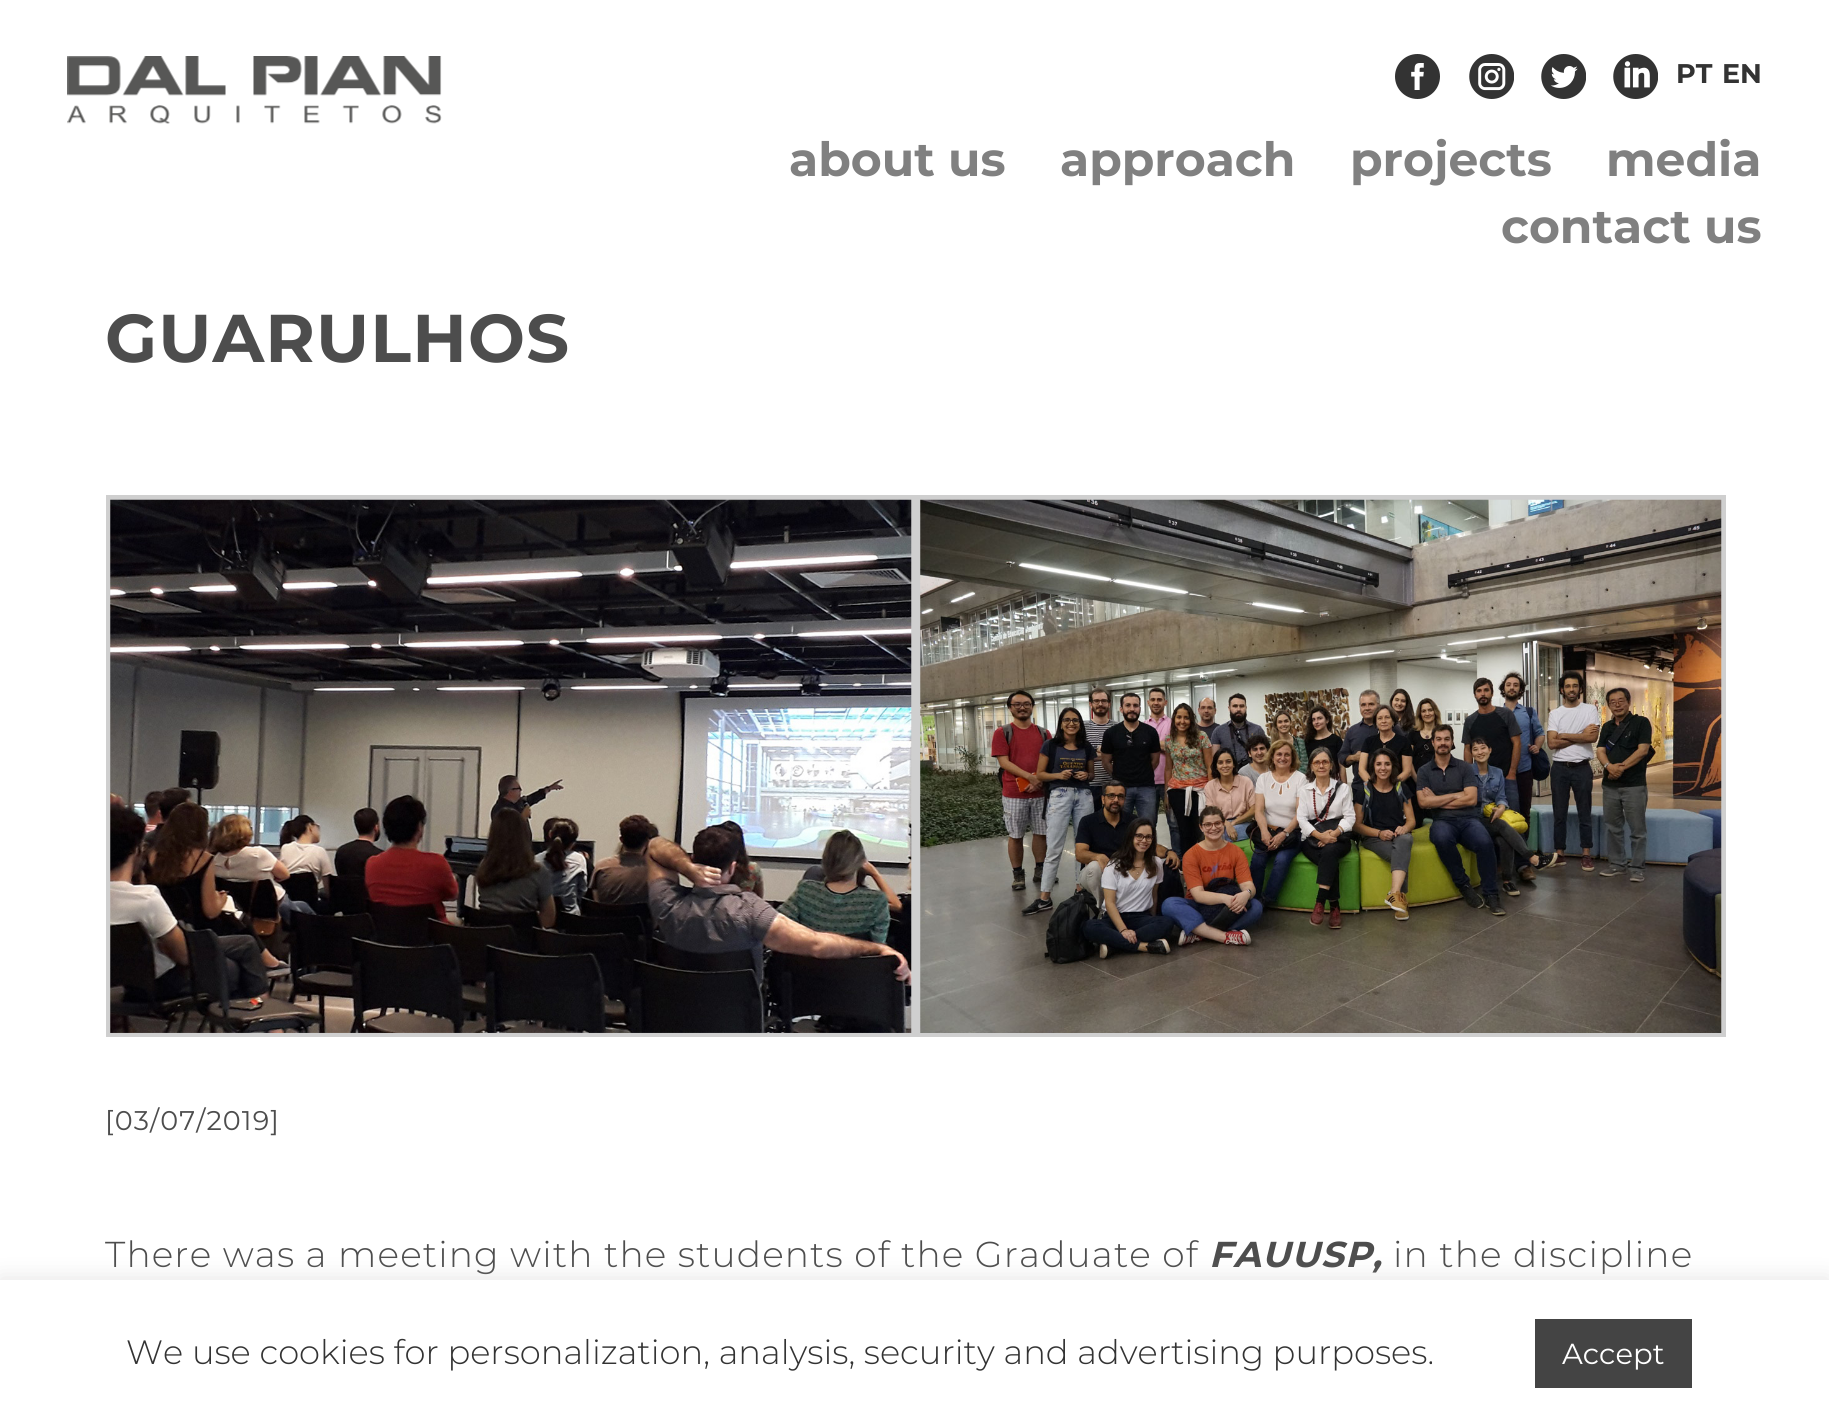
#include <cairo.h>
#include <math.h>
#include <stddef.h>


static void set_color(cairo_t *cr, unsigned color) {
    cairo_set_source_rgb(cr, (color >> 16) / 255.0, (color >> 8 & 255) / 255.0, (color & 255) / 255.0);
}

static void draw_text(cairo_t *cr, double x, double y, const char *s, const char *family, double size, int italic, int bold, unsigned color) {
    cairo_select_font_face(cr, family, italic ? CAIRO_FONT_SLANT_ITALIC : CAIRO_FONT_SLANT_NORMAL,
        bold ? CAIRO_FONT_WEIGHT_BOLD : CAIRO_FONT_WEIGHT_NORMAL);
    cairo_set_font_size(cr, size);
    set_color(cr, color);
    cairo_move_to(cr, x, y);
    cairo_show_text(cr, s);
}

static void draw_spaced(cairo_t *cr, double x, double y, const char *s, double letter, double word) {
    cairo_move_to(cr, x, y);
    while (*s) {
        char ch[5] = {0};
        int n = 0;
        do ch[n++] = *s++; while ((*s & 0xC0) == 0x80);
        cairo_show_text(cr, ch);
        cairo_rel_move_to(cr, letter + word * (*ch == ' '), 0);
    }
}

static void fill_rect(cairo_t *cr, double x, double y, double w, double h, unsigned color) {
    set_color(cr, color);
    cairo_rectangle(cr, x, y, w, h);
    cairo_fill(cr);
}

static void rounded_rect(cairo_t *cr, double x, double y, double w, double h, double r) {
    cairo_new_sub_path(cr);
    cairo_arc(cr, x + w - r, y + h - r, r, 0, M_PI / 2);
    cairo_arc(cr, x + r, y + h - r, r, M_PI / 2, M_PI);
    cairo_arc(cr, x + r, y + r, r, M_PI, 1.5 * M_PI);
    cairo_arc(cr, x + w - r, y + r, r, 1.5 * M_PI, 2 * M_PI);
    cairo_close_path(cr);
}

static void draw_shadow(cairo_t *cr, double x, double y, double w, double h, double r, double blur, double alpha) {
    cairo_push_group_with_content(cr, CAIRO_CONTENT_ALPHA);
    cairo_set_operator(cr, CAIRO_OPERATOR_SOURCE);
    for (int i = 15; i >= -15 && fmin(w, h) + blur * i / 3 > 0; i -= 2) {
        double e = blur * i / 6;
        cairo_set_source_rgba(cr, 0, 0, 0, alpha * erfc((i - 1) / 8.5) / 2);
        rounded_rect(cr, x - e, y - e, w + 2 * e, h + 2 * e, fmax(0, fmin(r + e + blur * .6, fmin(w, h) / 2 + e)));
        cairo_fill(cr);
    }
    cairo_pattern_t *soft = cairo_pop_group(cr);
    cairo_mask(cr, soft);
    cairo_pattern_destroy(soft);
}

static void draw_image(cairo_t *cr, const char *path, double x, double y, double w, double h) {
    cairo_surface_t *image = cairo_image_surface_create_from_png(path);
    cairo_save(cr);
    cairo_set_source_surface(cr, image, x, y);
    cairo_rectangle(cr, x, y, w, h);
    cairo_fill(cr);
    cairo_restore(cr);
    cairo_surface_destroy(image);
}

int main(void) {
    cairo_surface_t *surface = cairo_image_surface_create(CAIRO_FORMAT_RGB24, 1829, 1426);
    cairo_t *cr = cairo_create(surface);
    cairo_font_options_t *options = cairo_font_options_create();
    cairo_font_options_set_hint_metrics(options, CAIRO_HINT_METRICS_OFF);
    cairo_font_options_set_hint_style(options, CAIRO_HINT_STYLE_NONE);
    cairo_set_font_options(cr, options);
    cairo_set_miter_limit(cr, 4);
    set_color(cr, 0xFFFFFF);
    cairo_paint(cr);
    draw_image(cr, "assets/img1.png", 67, 56, 375, 68);
    draw_image(cr, "assets/img2.png", 1395, 54, 45, 45);
    draw_image(cr, "assets/img3.png", 1469, 54, 45, 45);
    draw_image(cr, "assets/img4.png", 1541, 54, 45, 45);
    draw_image(cr, "assets/img5.png", 1613, 54, 45, 45);
    draw_text(cr, 1676, 83, "PT", "Montserrat", 27, 0, 1, 0x333333);
    draw_text(cr, 1722, 83, "EN", "Montserrat", 27, 0, 1, 0x333333);
    draw_text(cr, 789, 176, "about us", "Montserrat", 47.25, 0, 1, 0x808080);
    draw_text(cr, 1060, 176, "approach", "Montserrat", 47.25, 0, 1, 0x808080);
    draw_text(cr, 1350, 176, "projects", "Montserrat", 47.25, 0, 1, 0x808080);
    draw_text(cr, 1606, 176, "media", "Montserrat", 47.25, 0, 1, 0x808080);
    draw_text(cr, 1501, 243, "contact us", "Montserrat", 47.25, 0, 1, 0x808080);
    cairo_set_font_size(cr, 67.5);
    set_color(cr, 0x4D4D4D);
    draw_spaced(cr, 105, 362, "GUARULHOS", 1.12, 0);
    cairo_rectangle(cr, 108.5, 497.5, 805, 537);
    set_color(cr, 0xCFCFCF);
    cairo_set_line_width(cr, 5);
    cairo_stroke(cr);
    draw_image(cr, "assets/img6.png", 110, 499, 802, 534);
    cairo_rectangle(cr, 918.5, 497.5, 805, 537);
    cairo_stroke(cr);
    draw_image(cr, "assets/img7.png", 920, 499, 802, 534);
    cairo_select_font_face(cr, "Montserrat", CAIRO_FONT_SLANT_NORMAL, CAIRO_FONT_WEIGHT_NORMAL);
    cairo_set_font_size(cr, 27);
    set_color(cr, 0x4D4D4D);
    draw_spaced(cr, 105, 1130, "[03/07/2019]", 1.12, 0);
    cairo_select_font_face(cr, "Montserrat Light", CAIRO_FONT_SLANT_NORMAL, CAIRO_FONT_WEIGHT_NORMAL);
    cairo_set_font_size(cr, 36);
    draw_spaced(cr, 105, 1267, "There was a meeting with the students of the Graduate of", 1.12, 0);
    cairo_select_font_face(cr, "Montserrat", CAIRO_FONT_SLANT_ITALIC, CAIRO_FONT_WEIGHT_BOLD);
    draw_spaced(cr, 1209, 1267, "FAUUSP,", 1.12, 0);
    cairo_select_font_face(cr, "Montserrat Light", CAIRO_FONT_SLANT_NORMAL, CAIRO_FONT_WEIGHT_NORMAL);
    draw_spaced(cr, 1393, 1267, "in the discipline", 1.12, 0);
    set_color(cr, 0xACABAB);
    draw_shadow(cr, 0, 1278, 1829, 146, 0, 11, 0.3);
    fill_rect(cr, 0, 1280, 1829, 146, 0xFFFFFF);
    draw_text(cr, 126, 1364, "We use cookies for personalization, analysis, security and advertising purposes.", "Montserrat Light", 33.75, 0, 0, 0x333333);
    fill_rect(cr, 1535, 1319, 157, 69, 0x444444);
    draw_text(cr, 1562, 1364, "Accept", "Montserrat", 29, 0, 0, 0xFFFFFF);
    cairo_surface_write_to_png(surface, "output.png");
    cairo_font_options_destroy(options);
    cairo_destroy(cr);
    cairo_surface_destroy(surface);
    return 0;
}
